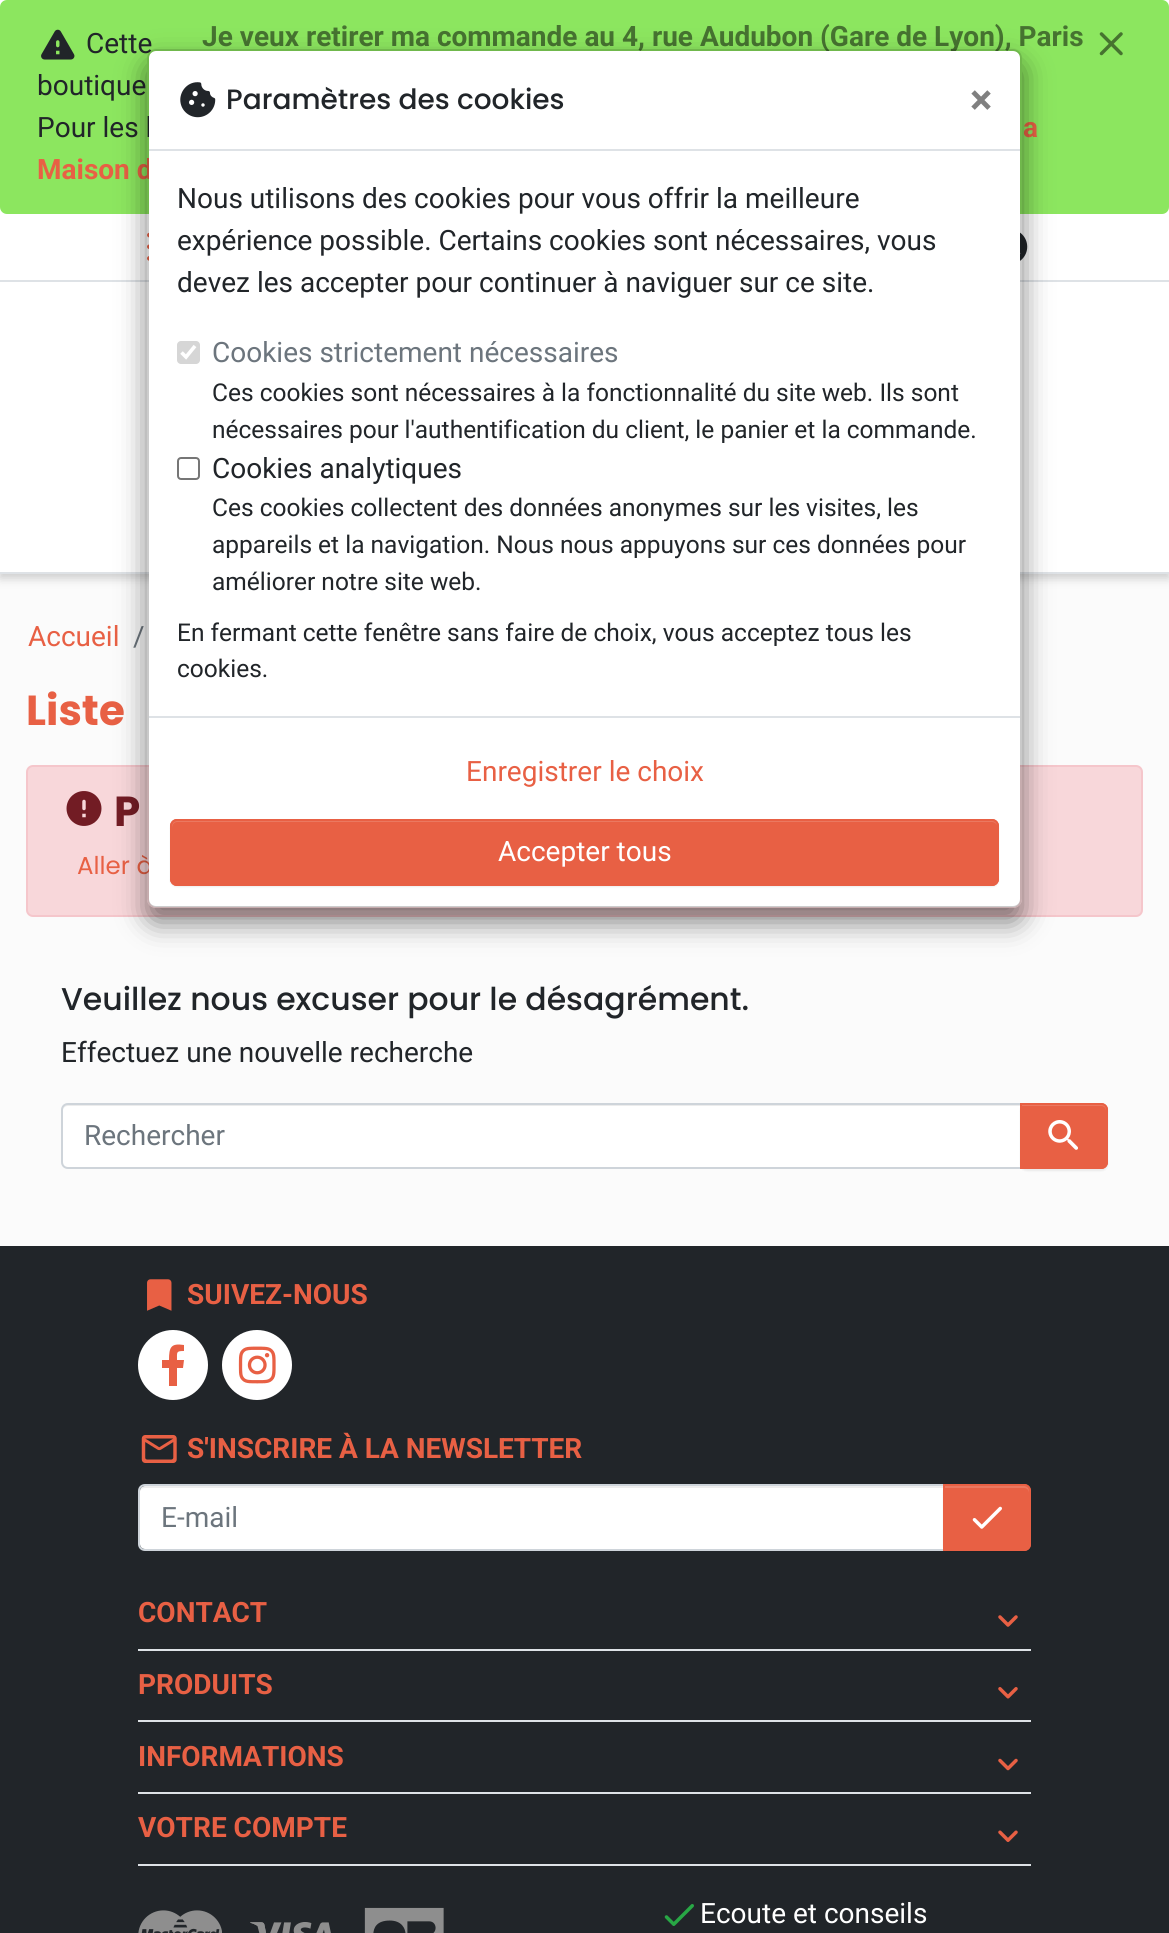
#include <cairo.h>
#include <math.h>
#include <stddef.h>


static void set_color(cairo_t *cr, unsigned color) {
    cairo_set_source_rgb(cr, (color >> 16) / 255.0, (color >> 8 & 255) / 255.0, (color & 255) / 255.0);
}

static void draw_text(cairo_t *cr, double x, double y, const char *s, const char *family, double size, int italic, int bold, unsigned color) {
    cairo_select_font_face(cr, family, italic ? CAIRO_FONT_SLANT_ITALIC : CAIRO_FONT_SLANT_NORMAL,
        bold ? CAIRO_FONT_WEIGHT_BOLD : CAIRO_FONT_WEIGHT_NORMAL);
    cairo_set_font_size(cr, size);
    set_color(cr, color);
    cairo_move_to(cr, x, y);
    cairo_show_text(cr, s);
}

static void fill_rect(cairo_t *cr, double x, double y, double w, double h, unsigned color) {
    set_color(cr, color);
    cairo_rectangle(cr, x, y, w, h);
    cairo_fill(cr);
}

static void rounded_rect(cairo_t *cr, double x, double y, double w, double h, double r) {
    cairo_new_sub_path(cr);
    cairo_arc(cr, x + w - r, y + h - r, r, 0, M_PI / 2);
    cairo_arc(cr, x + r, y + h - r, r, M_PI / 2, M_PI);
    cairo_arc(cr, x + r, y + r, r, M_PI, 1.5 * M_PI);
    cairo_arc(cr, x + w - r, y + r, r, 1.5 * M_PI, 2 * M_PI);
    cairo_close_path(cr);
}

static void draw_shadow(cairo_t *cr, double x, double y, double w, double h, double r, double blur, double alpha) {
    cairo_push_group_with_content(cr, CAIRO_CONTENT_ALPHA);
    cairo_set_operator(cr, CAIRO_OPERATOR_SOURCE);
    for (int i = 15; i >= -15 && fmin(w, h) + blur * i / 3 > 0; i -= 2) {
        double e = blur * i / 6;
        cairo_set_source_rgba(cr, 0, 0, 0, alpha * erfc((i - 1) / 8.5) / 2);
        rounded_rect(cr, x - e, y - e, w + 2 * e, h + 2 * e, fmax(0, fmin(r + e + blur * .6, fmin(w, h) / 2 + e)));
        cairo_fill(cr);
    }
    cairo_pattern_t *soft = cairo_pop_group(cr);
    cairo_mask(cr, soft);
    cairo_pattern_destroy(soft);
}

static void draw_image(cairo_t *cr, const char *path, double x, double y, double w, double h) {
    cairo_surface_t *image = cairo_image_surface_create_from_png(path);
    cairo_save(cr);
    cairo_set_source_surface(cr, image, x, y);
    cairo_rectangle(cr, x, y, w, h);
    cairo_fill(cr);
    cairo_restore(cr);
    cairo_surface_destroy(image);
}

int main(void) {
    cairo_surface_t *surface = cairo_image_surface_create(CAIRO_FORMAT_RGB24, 1169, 1933);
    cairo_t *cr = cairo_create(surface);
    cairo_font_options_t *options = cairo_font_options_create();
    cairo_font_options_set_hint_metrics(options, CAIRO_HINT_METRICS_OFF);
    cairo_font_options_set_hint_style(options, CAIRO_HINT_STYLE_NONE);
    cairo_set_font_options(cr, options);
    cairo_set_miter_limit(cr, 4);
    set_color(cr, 0xFBFBFB);
    cairo_paint(cr);
    set_color(cr, 0x000000);
    draw_shadow(cr, 0, 4, 1169, 574, 0, 5, 0.2);
    fill_rect(cr, 0, 0, 1169, 572, 0xFFFFFF);
    set_color(cr, 0x8CE65F);
    rounded_rect(cr, 0, 0, 1169, 214, 7);
    cairo_fill(cr);
    draw_image(cr, "assets/img1.png", 41, 29, 34, 31);
    draw_text(cr, 86, 53, "Cette", "Roboto", 28, 0, 0, 0x212529);
    draw_text(cr, 202, 46, "Je veux retirer ma commande au 4, rue Audubon (Gare de Lyon), Paris", "Roboto", 28, 0, 1, 0x467330);
    draw_image(cr, "assets/img2.png", 1099, 32, 24, 24);
    draw_text(cr, 37, 95, "boutique", "Roboto", 28, 0, 0, 0x212529);
    draw_text(cr, 37, 137, "Pour les l", "Roboto", 28, 0, 0, 0x212529);
    draw_text(cr, 1023, 137, "a", "Roboto", 28, 0, 1, 0xE86044);
    draw_text(cr, 37, 179, "Maison d", "Roboto", 28, 0, 1, 0xE86044);
    fill_rect(cr, 0, 572, 1169, 2, 0xDEE2E6);
    fill_rect(cr, 0, 280, 1169, 2, 0xDEE2E6);
    draw_image(cr, "assets/img3.png", 147, 232, 2, 29);
    draw_image(cr, "assets/img4.png", 1020, 232, 8, 29);
    draw_text(cr, 28, 646, "Accueil", "Roboto", 28, 0, 0, 0xE86044);
    draw_text(cr, 133, 646, "/", "Roboto", 28, 0, 0, 0x6C757D);
    draw_text(cr, 26, 725, "Liste", "Poppins", 42, 0, 1, 0xE86044);
    set_color(cr, 0xF8D7DA);
    rounded_rect(cr, 27, 766, 1115, 150, 6);
    cairo_fill_preserve(cr);
    set_color(cr, 0xF5C6CB);
    cairo_stroke(cr);
    draw_image(cr, "assets/img5.png", 66, 791, 36, 35);
    draw_text(cr, 114, 826, "P", "Poppins", 42, 0, 1, 0x721C24);
    draw_text(cr, 77, 874, "Aller à", "Poppins", 24.5, 0, 0, 0xE86044);
    draw_text(cr, 61, 1010, "Veuillez nous excuser pour le désagrément.", "Poppins Medium", 31.5, 0, 0, 0x212529);
    draw_text(cr, 61, 1062, "Effectuez une nouvelle recherche", "Roboto", 28, 0, 0, 0x212529);
    set_color(cr, 0xFFFFFF);
    cairo_new_path(cr);
    cairo_move_to(cr, 68, 1104);
    cairo_line_to(cr, 1020, 1104);
    cairo_line_to(cr, 1020, 1167);
    cairo_line_to(cr, 68, 1167);
    cairo_curve_to(cr, 65, 1167, 63, 1165, 63, 1162);
    cairo_line_to(cr, 63, 1109);
    cairo_curve_to(cr, 63, 1106, 65, 1104, 68, 1104);
    cairo_close_path(cr);
    cairo_fill(cr);
    set_color(cr, 0xECECEC);
    cairo_new_path(cr);
    cairo_move_to(cr, 68, 1106);
    cairo_line_to(cr, 1020, 1106);
    cairo_line_to(cr, 1020, 1104);
    cairo_line_to(cr, 68, 1104);
    cairo_curve_to(cr, 64, 1104, 63, 1108, 63, 1111);
    cairo_curve_to(cr, 63, 1108, 65, 1106, 68, 1106);
    cairo_close_path(cr);
    cairo_fill(cr);
    cairo_new_path(cr);
    cairo_move_to(cr, 68, 1104);
    cairo_line_to(cr, 1021, 1104);
    cairo_line_to(cr, 1021, 1168);
    cairo_line_to(cr, 68, 1168);
    cairo_curve_to(cr, 64.5, 1168, 62, 1165.5, 62, 1162);
    cairo_line_to(cr, 62, 1110);
    cairo_curve_to(cr, 62, 1106.5, 64.5, 1104, 68, 1104);
    cairo_close_path(cr);
    set_color(cr, 0xCED4DA);
    cairo_stroke(cr);
    draw_text(cr, 84, 1145, "Rechercher", "Roboto", 28, 0, 0, 0x6C757D);
    set_color(cr, 0x000000);
    draw_shadow(cr, 1020, 1104, 88, 67, 7, 1, 0.07);
    set_color(cr, 0xE86044);
    cairo_new_path(cr);
    cairo_move_to(cr, 1020, 1103);
    cairo_line_to(cr, 1101, 1103);
    cairo_curve_to(cr, 1105, 1103, 1108, 1106, 1108, 1110);
    cairo_line_to(cr, 1108, 1162);
    cairo_curve_to(cr, 1108, 1166, 1105, 1169, 1101, 1169);
    cairo_line_to(cr, 1020, 1169);
    cairo_close_path(cr);
    cairo_fill(cr);
    set_color(cr, 0xEB7860);
    cairo_new_path(cr);
    cairo_move_to(cr, 1022, 1106);
    cairo_line_to(cr, 1101, 1106);
    cairo_curve_to(cr, 1104, 1106, 1106, 1108, 1106, 1111);
    cairo_line_to(cr, 1106, 1109);
    cairo_curve_to(cr, 1106, 1106, 1104, 1104, 1101, 1104);
    cairo_line_to(cr, 1022, 1104);
    cairo_close_path(cr);
    cairo_fill(cr);
    cairo_new_path(cr);
    cairo_move_to(cr, 1021, 1104);
    cairo_line_to(cr, 1101, 1104);
    cairo_curve_to(cr, 1104.5, 1104, 1107, 1106.5, 1107, 1110);
    cairo_line_to(cr, 1107, 1162);
    cairo_curve_to(cr, 1107, 1165.5, 1104.5, 1168, 1101, 1168);
    cairo_line_to(cr, 1021, 1168);
    cairo_close_path(cr);
    set_color(cr, 0xE86044);
    cairo_stroke(cr);
    draw_image(cr, "assets/img6.png", 1048, 1120, 30, 30);
    fill_rect(cr, 0, 1246, 1169, 687, 0x212529);
    draw_image(cr, "assets/img7.png", 147, 1279, 25, 32);
    draw_text(cr, 187, 1304, "SUIVEZ-NOUS", "Roboto", 28, 0, 1, 0xE86044);
    set_color(cr, 0xFFFFFF);
    cairo_new_path(cr);
    cairo_arc(cr, 173, 1365, 35, 0, 2 * M_PI);
    cairo_fill(cr);
    set_color(cr, 0xE86044);
    cairo_new_path(cr);
    cairo_move_to(cr, 183, 1368);
    cairo_line_to(cr, 184, 1360);
    cairo_line_to(cr, 177, 1360);
    cairo_curve_to(cr, 177, 1352, 176, 1351, 184, 1351);
    cairo_line_to(cr, 184, 1345);
    cairo_curve_to(cr, 171, 1343, 169, 1347, 169, 1360);
    cairo_line_to(cr, 162, 1360);
    cairo_line_to(cr, 162, 1368);
    cairo_line_to(cr, 169, 1368);
    cairo_line_to(cr, 169, 1386);
    cairo_line_to(cr, 177, 1386);
    cairo_line_to(cr, 177, 1368);
    cairo_close_path(cr);
    cairo_fill(cr);
    set_color(cr, 0xFFFFFF);
    cairo_arc(cr, 257, 1365, 35, 0, 2 * M_PI);
    cairo_fill(cr);
    draw_image(cr, "assets/img8.png", 238, 1346, 38, 38);
    draw_image(cr, "assets/img9.png", 141, 1435, 36, 28);
    draw_text(cr, 187, 1458, "S'INSCRIRE À LA NEWSLETTER", "Roboto", 28, 0, 1, 0xE86044);
    set_color(cr, 0xFFFFFF);
    cairo_new_path(cr);
    cairo_move_to(cr, 145, 1486);
    cairo_line_to(cr, 943, 1486);
    cairo_line_to(cr, 943, 1549);
    cairo_line_to(cr, 145, 1549);
    cairo_curve_to(cr, 142, 1549, 140, 1547, 140, 1544);
    cairo_line_to(cr, 140, 1491);
    cairo_curve_to(cr, 140, 1488, 142, 1486, 145, 1486);
    cairo_close_path(cr);
    cairo_fill(cr);
    cairo_set_source_rgba(cr, 0, 0, 0, 0.07);
    cairo_new_path(cr);
    cairo_move_to(cr, 145, 1488);
    cairo_line_to(cr, 943, 1488);
    cairo_line_to(cr, 943, 1486);
    cairo_line_to(cr, 145, 1486);
    cairo_curve_to(cr, 141, 1486, 140, 1490, 140, 1493);
    cairo_curve_to(cr, 140, 1490, 142, 1488, 145, 1488);
    cairo_close_path(cr);
    cairo_fill(cr);
    cairo_new_path(cr);
    cairo_move_to(cr, 145, 1485);
    cairo_line_to(cr, 944, 1485);
    cairo_line_to(cr, 944, 1550);
    cairo_line_to(cr, 145, 1550);
    cairo_curve_to(cr, 141.5, 1550, 139, 1547.5, 139, 1544);
    cairo_line_to(cr, 139, 1491);
    cairo_curve_to(cr, 139, 1487.5, 141.5, 1485, 145, 1485);
    cairo_close_path(cr);
    set_color(cr, 0xCED4DA);
    cairo_stroke(cr);
    draw_text(cr, 161, 1527, "E-mail", "Roboto", 28, 0, 0, 0x6C757D);
    set_color(cr, 0x000000);
    draw_shadow(cr, 943, 1486, 88, 66, 7, 1, 0.07);
    set_color(cr, 0xE86044);
    cairo_new_path(cr);
    cairo_move_to(cr, 943, 1484);
    cairo_line_to(cr, 1024, 1484);
    cairo_curve_to(cr, 1028, 1484, 1031, 1487, 1031, 1491);
    cairo_line_to(cr, 1031, 1544);
    cairo_curve_to(cr, 1031, 1548, 1028, 1551, 1024, 1551);
    cairo_line_to(cr, 943, 1551);
    cairo_close_path(cr);
    cairo_fill(cr);
    set_color(cr, 0xEB7860);
    cairo_new_path(cr);
    cairo_move_to(cr, 945, 1488);
    cairo_line_to(cr, 1024, 1488);
    cairo_curve_to(cr, 1027, 1488, 1029, 1490, 1029, 1493);
    cairo_line_to(cr, 1029, 1491);
    cairo_curve_to(cr, 1029, 1488, 1027, 1486, 1024, 1486);
    cairo_line_to(cr, 945, 1486);
    cairo_close_path(cr);
    cairo_fill(cr);
    cairo_new_path(cr);
    cairo_move_to(cr, 944, 1485);
    cairo_line_to(cr, 1024, 1485);
    cairo_curve_to(cr, 1027.5, 1485, 1030, 1487.5, 1030, 1491);
    cairo_line_to(cr, 1030, 1544);
    cairo_curve_to(cr, 1030, 1547.5, 1027.5, 1550, 1024, 1550);
    cairo_line_to(cr, 944, 1550);
    cairo_close_path(cr);
    set_color(cr, 0xE86044);
    cairo_stroke(cr);
    draw_image(cr, "assets/img10.png", 972, 1506, 30, 23);
    fill_rect(cr, 138, 1649, 893, 2, 0xDEE2E6);
    draw_text(cr, 138, 1622, "CONTACT", "Roboto", 28, 0, 1, 0xE86044);
    draw_image(cr, "assets/img11.png", 998, 1615, 20, 12);
    fill_rect(cr, 138, 1720, 893, 2, 0xDEE2E6);
    draw_text(cr, 138, 1694, "PRODUITS", "Roboto", 28, 0, 1, 0xE86044);
    draw_image(cr, "assets/img12.png", 998, 1687, 20, 12);
    fill_rect(cr, 138, 1792, 893, 2, 0xDEE2E6);
    draw_text(cr, 138, 1766, "INFORMATIONS", "Roboto", 28, 0, 1, 0xE86044);
    draw_image(cr, "assets/img13.png", 998, 1758, 20, 13);
    fill_rect(cr, 138, 1864, 893, 2, 0xDEE2E6);
    draw_text(cr, 138, 1837, "VOTRE COMPTE", "Roboto", 28, 0, 1, 0xE86044);
    draw_image(cr, "assets/img14.png", 998, 1830, 20, 12);
    draw_image(cr, "assets/img15.png", 138, 1910, 84, 23);
    draw_image(cr, "assets/img16.png", 250, 1922, 81, 11);
    draw_image(cr, "assets/img17.png", 364, 1907, 80, 26);
    draw_image(cr, "assets/img18.png", 664, 1904, 30, 22);
    draw_text(cr, 700, 1923, "Ecoute et conseils", "Roboto", 28, 0, 0, 0xFFFFFF);
    cairo_save(cr);
    cairo_set_fill_rule(cr, CAIRO_FILL_RULE_EVEN_ODD);
    cairo_new_path(cr);
    cairo_move_to(cr, 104, 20);
    cairo_line_to(cr, 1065, 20);
    cairo_line_to(cr, 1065, 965);
    cairo_line_to(cr, 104, 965);
    cairo_close_path(cr);
    cairo_move_to(cr, 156, 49);
    cairo_line_to(cr, 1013, 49);
    cairo_curve_to(cr, 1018, 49, 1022, 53, 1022, 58);
    cairo_line_to(cr, 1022, 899);
    cairo_curve_to(cr, 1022, 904, 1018, 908, 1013, 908);
    cairo_line_to(cr, 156, 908);
    cairo_curve_to(cr, 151, 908, 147, 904, 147, 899);
    cairo_line_to(cr, 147, 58);
    cairo_curve_to(cr, 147, 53, 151, 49, 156, 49);
    cairo_close_path(cr);
    cairo_clip(cr);
    set_color(cr, 0x000000);
    draw_shadow(cr, 147, 63, 875, 859, 9, 14, 0.5);
    cairo_restore(cr);
    rounded_rect(cr, 149, 51, 871, 856, 7);
    cairo_fill(cr);
    rounded_rect(cr, 148, 50, 873, 857, 8);
    cairo_set_source_rgba(cr, 0, 0, 0, 0.2);
    cairo_stroke(cr);
    fill_rect(cr, 149, 149, 871, 2, 0xDEE2E6);
    draw_image(cr, "assets/img19.png", 180, 82, 36, 36);
    draw_text(cr, 226, 109, "Paramètres des cookies", "Poppins Medium", 28, 0, 0, 0x212529);
    draw_text(cr, 970, 114, "×", "Roboto", 42, 0, 1, 0x808080);
    draw_text(cr, 177, 208, "Nous utilisons des cookies pour vous offrir la meilleure", "Roboto", 28, 0, 0, 0x212529);
    draw_text(cr, 177, 250, "expérience possible. Certains cookies sont nécessaires, vous", "Roboto", 28, 0, 0, 0x212529);
    draw_text(cr, 177, 292, "devez les accepter pour continuer à naviguer sur ce site.", "Roboto", 28, 0, 0, 0x212529);
    set_color(cr, 0xD6D6D6);
    rounded_rect(cr, 177, 341, 23, 23, 4);
    cairo_fill(cr);
    cairo_new_path(cr);
    cairo_move_to(cr, 181.5, 352.5);
    cairo_line_to(cr, 186, 357);
    cairo_line_to(cr, 195, 346);
    set_color(cr, 0xFFFFFF);
    cairo_set_line_width(cr, 3.6);
    cairo_stroke(cr);
    draw_text(cr, 212, 362, "Cookies strictement nécessaires", "Roboto", 28, 0, 0, 0x6C757D);
    draw_text(cr, 212, 401, "Ces cookies sont nécessaires à la fonctionnalité du site web. Ils sont", "Roboto", 24.5, 0, 0, 0x212529);
    draw_text(cr, 212, 438, "nécessaires pour l'authentification du client, le panier et la commande.", "Roboto", 24.5, 0, 0, 0x212529);
    rounded_rect(cr, 178, 458, 21, 21, 3);
    set_color(cr, 0x767676);
    cairo_set_line_width(cr, 2);
    cairo_stroke(cr);
    draw_text(cr, 212, 478, "Cookies analytiques", "Roboto", 28, 0, 0, 0x212529);
    draw_text(cr, 212, 516, "Ces cookies collectent des données anonymes sur les visites, les", "Roboto", 24.5, 0, 0, 0x212529);
    draw_text(cr, 212, 553, "appareils et la navigation. Nous nous appuyons sur ces données pour", "Roboto", 24.5, 0, 0, 0x212529);
    draw_text(cr, 212, 590, "améliorer notre site web.", "Roboto", 24.5, 0, 0, 0x212529);
    draw_text(cr, 177, 641, "En fermant cette fenêtre sans faire de choix, vous acceptez tous les", "Roboto", 24.5, 0, 0, 0x212529);
    draw_text(cr, 177, 677, "cookies.", "Roboto", 24.5, 0, 0, 0x212529);
    fill_rect(cr, 149, 716, 871, 2, 0xDEE2E6);
    draw_text(cr, 466, 781, "Enregistrer le choix", "Roboto", 28, 0, 0, 0xE86044);
    set_color(cr, 0x000000);
    draw_shadow(cr, 170, 821, 829, 66, 7, 1, 0.07);
    set_color(cr, 0xE86044);
    rounded_rect(cr, 170, 819, 829, 67, 7);
    cairo_fill(cr);
    set_color(cr, 0xEB7860);
    cairo_new_path(cr);
    cairo_move_to(cr, 177, 822);
    cairo_line_to(cr, 992, 822);
    cairo_curve_to(cr, 995, 822, 998, 825, 998, 828);
    cairo_line_to(cr, 998, 826);
    cairo_curve_to(cr, 998, 823, 996, 821, 993, 821);
    cairo_line_to(cr, 177, 821);
    cairo_curve_to(cr, 174, 821, 172, 823, 172, 826);
    cairo_line_to(cr, 172, 828);
    cairo_curve_to(cr, 172, 825, 174, 822, 177, 822);
    cairo_close_path(cr);
    cairo_fill(cr);
    rounded_rect(cr, 171, 820, 827, 65, 6);
    set_color(cr, 0xE86044);
    cairo_stroke(cr);
    draw_text(cr, 498, 861, "Accepter tous", "Roboto", 28, 0, 0, 0xFFFFFF);
    cairo_surface_write_to_png(surface, "output.png");
    cairo_font_options_destroy(options);
    cairo_destroy(cr);
    cairo_surface_destroy(surface);
    return 0;
}
